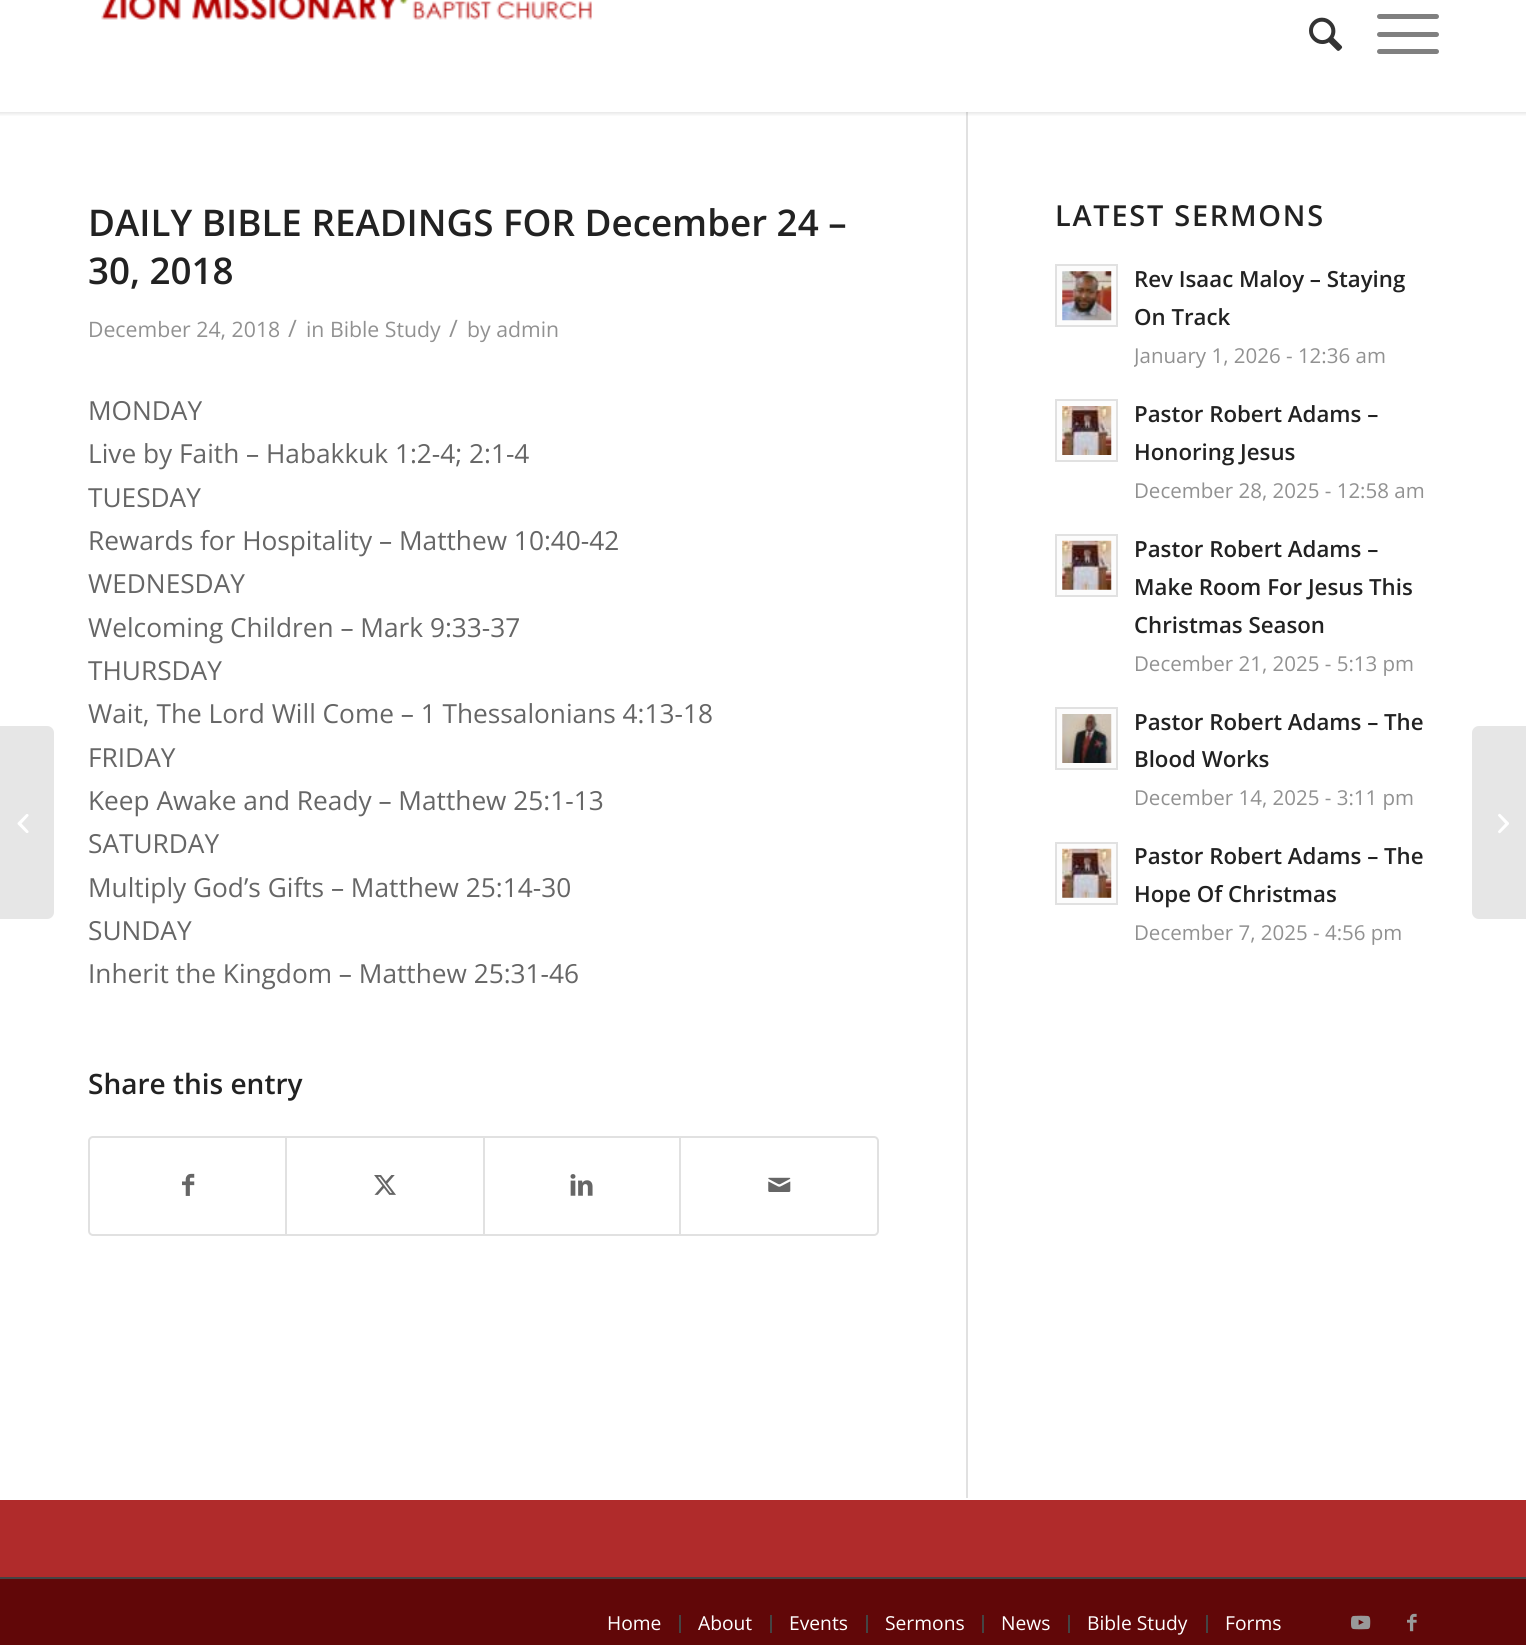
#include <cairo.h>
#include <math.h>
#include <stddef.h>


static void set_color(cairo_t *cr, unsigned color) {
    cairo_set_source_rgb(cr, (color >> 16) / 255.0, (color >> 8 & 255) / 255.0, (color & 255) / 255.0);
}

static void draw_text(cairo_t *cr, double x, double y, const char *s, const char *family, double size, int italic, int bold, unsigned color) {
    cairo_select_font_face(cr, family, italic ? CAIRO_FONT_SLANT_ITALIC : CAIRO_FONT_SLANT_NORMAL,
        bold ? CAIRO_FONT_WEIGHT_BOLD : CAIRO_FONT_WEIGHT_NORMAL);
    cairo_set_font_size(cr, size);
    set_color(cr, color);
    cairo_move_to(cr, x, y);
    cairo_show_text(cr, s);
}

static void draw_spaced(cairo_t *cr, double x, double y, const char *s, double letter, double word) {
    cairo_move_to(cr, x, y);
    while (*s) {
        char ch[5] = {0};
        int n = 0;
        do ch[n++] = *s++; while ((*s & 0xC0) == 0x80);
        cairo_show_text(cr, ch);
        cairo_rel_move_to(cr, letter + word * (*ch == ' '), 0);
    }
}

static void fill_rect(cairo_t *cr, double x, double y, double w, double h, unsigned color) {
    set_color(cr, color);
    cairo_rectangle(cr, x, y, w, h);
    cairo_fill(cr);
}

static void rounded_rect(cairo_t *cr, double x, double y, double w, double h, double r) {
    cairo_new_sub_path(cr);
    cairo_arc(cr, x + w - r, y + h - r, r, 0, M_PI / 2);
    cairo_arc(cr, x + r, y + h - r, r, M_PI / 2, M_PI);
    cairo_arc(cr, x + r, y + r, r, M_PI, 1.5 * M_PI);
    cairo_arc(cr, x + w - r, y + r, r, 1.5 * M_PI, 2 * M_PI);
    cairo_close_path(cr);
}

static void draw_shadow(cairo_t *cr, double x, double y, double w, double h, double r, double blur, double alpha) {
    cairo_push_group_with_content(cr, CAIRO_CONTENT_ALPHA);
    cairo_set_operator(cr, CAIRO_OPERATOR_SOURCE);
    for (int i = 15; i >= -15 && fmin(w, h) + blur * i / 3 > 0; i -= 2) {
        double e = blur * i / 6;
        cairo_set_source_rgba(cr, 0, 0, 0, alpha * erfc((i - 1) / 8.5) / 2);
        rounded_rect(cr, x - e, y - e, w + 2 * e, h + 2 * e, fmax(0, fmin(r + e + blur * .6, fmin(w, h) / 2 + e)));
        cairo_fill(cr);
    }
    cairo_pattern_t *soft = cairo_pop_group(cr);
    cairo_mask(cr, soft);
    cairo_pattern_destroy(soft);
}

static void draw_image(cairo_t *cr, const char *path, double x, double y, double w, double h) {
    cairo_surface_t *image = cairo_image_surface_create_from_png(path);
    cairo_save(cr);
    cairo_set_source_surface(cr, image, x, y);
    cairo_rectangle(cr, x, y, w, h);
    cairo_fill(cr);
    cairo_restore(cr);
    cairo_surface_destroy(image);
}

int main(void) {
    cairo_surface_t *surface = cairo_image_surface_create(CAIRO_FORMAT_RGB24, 1526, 1645);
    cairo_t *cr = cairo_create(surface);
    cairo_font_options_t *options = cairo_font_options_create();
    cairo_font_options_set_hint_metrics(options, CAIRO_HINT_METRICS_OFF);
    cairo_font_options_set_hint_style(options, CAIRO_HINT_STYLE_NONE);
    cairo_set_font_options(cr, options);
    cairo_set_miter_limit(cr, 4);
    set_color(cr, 0xFFFFFF);
    cairo_paint(cr);
    fill_rect(cr, 966, 112, 2, 1386, 0xE1E1E1);
    cairo_save(cr);
    cairo_rectangle(cr, 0, 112, 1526, 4);
    cairo_clip(cr);
    set_color(cr, 0x000000);
    draw_shadow(cr, -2, -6, 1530, 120, 0, 2, 0.1);
    cairo_restore(cr);
    draw_image(cr, "assets/img1.png", 101, 0, 491, 20);
    draw_image(cr, "assets/img2.png", 1309, 17, 34, 34);
    set_color(cr, 0x808080);
    rounded_rect(cr, 1377, 32, 62, 5, 2.5);
    cairo_fill(cr);
    rounded_rect(cr, 1377, 14, 62, 5, 2.5);
    cairo_fill(cr);
    rounded_rect(cr, 1377, 49, 62, 5, 2.5);
    cairo_fill(cr);
    set_color(cr, 0xE6E6E6);
    cairo_new_path(cr);
    cairo_move_to(cr, 0, 726);
    cairo_line_to(cr, 47, 726);
    cairo_curve_to(cr, 51, 726, 54, 729, 54, 733);
    cairo_line_to(cr, 54, 912);
    cairo_curve_to(cr, 54, 916, 51, 919, 47, 919);
    cairo_line_to(cr, 0, 919);
    cairo_close_path(cr);
    cairo_fill(cr);
    draw_image(cr, "assets/img3.png", 17, 814, 12, 19);
    draw_text(cr, 88, 236, "DAILY BIBLE READINGS FOR December 24 –", "Open Sans SemiBold", 36.75, 0, 0, 0x222222);
    draw_text(cr, 88, 284, "30, 2018", "Open Sans SemiBold", 36.75, 0, 0, 0x222222);
    draw_text(cr, 88, 337, "December 24, 2018", "Open Sans", 21.25, 0, 0, 0x919191);
    draw_text(cr, 288, 337, "/", "Open Sans", 24, 0, 0, 0x919191);
    draw_text(cr, 306, 337, "in Bible Study", "Open Sans", 21.25, 0, 0, 0x919191);
    draw_text(cr, 449, 337, "/", "Open Sans", 24, 0, 0, 0x919191);
    draw_text(cr, 467, 337, "by admin", "Open Sans", 21.25, 0, 0, 0x919191);
    draw_text(cr, 88, 420, "MONDAY", "Open Sans", 26.25, 0, 0, 0x666666);
    draw_text(cr, 88, 463, "Live by Faith – Habakkuk 1:2-4; 2:1-4", "Open Sans", 26.25, 0, 0, 0x666666);
    draw_text(cr, 88, 507, "TUESDAY", "Open Sans", 26.25, 0, 0, 0x666666);
    draw_text(cr, 88, 550, "Rewards for Hospitality – Matthew 10:40-42", "Open Sans", 26.25, 0, 0, 0x666666);
    draw_text(cr, 88, 593, "WEDNESDAY", "Open Sans", 26.25, 0, 0, 0x666666);
    draw_text(cr, 88, 637, "Welcoming Children – Mark 9:33-37", "Open Sans", 26.25, 0, 0, 0x666666);
    draw_text(cr, 88, 680, "THURSDAY", "Open Sans", 26.25, 0, 0, 0x666666);
    draw_text(cr, 88, 723, "Wait, The Lord Will Come – 1 Thessalonians 4:13-18", "Open Sans", 26.25, 0, 0, 0x666666);
    draw_text(cr, 88, 767, "FRIDAY", "Open Sans", 26.25, 0, 0, 0x666666);
    draw_text(cr, 88, 810, "Keep Awake and Ready – Matthew 25:1-13", "Open Sans", 26.25, 0, 0, 0x666666);
    draw_text(cr, 88, 853, "SATURDAY", "Open Sans", 26.25, 0, 0, 0x666666);
    draw_text(cr, 88, 897, "Multiply God’s Gifts – Matthew 25:14-30", "Open Sans", 26.25, 0, 0, 0x666666);
    draw_text(cr, 88, 940, "SUNDAY", "Open Sans", 26.25, 0, 0, 0x666666);
    draw_text(cr, 88, 983, "Inherit the Kingdom – Matthew 25:31-46", "Open Sans", 26.25, 0, 0, 0x666666);
    draw_text(cr, 88, 1094, "Share this entry", "Open Sans SemiBold", 28, 0, 0, 0x222222);
    rounded_rect(cr, 89, 1137, 789, 98, 4);
    set_color(cr, 0xE1E1E1);
    cairo_stroke(cr);
    draw_image(cr, "assets/img4.png", 182, 1173, 13, 23);
    fill_rect(cr, 285, 1138, 2, 96, 0xE1E1E1);
    draw_image(cr, "assets/img5.png", 374, 1175, 22, 20);
    fill_rect(cr, 483, 1138, 2, 96, 0xE1E1E1);
    draw_image(cr, "assets/img6.png", 570, 1174, 23, 22);
    fill_rect(cr, 679, 1138, 2, 96, 0xE1E1E1);
    draw_image(cr, "assets/img7.png", 768, 1177, 23, 15);
    cairo_set_font_size(cr, 28.9);
    set_color(cr, 0x222222);
    draw_spaced(cr, 1055, 226, "LATEST SERMONS", 1.75, 0);
    set_color(cr, 0xFCFCFC);
    cairo_rectangle(cr, 1056, 265, 61, 61);
    cairo_fill_preserve(cr);
    set_color(cr, 0xE1E1E1);
    cairo_stroke(cr);
    draw_image(cr, "assets/img8.png", 1062, 271, 50, 50);
    draw_text(cr, 1134, 287, "Rev Isaac Maloy – Staying", "Open Sans SemiBold", 22.25, 0, 0, 0x222222);
    draw_text(cr, 1134, 325, "On Track", "Open Sans SemiBold", 22.25, 0, 0, 0x222222);
    cairo_save(cr);
    cairo_rectangle(cr, 1134, 261, 305, 114);
    cairo_clip(cr);
    draw_text(cr, 1134, 363, "January 1, 2026 - 12:36 am", "Open Sans", 20.5, 0, 0, 0x919191);
    cairo_restore(cr);
    set_color(cr, 0xFCFCFC);
    cairo_rectangle(cr, 1056, 400, 61, 61);
    cairo_fill_preserve(cr);
    set_color(cr, 0xE1E1E1);
    cairo_stroke(cr);
    draw_image(cr, "assets/img9.png", 1062, 406, 50, 49);
    draw_text(cr, 1134, 422, "Pastor Robert Adams –", "Open Sans SemiBold", 22.25, 0, 0, 0x222222);
    draw_text(cr, 1134, 460, "Honoring Jesus", "Open Sans SemiBold", 22.25, 0, 0, 0x222222);
    draw_text(cr, 1134, 498, "December 28, 2025 - 12:58 am", "Open Sans", 20.5, 0, 0, 0x919191);
    set_color(cr, 0xFCFCFC);
    cairo_rectangle(cr, 1056, 535, 61, 61);
    cairo_fill_preserve(cr);
    set_color(cr, 0xE1E1E1);
    cairo_stroke(cr);
    draw_image(cr, "assets/img10.png", 1062, 540, 50, 50);
    draw_text(cr, 1134, 557, "Pastor Robert Adams –", "Open Sans SemiBold", 22.25, 0, 0, 0x222222);
    draw_text(cr, 1134, 595, "Make Room For Jesus This", "Open Sans SemiBold", 22.25, 0, 0, 0x222222);
    draw_text(cr, 1134, 633, "Christmas Season", "Open Sans SemiBold", 22.25, 0, 0, 0x222222);
    draw_text(cr, 1134, 671, "December 21, 2025 - 5:13 pm", "Open Sans", 20.5, 0, 0, 0x919191);
    set_color(cr, 0xFCFCFC);
    cairo_rectangle(cr, 1056, 708, 61, 61);
    cairo_fill_preserve(cr);
    set_color(cr, 0xE1E1E1);
    cairo_stroke(cr);
    draw_image(cr, "assets/img11.png", 1062, 714, 50, 49);
    draw_text(cr, 1134, 730, "Pastor Robert Adams – The", "Open Sans SemiBold", 22.25, 0, 0, 0x222222);
    draw_text(cr, 1134, 767, "Blood Works", "Open Sans SemiBold", 22.25, 0, 0, 0x222222);
    draw_text(cr, 1134, 805, "December 14, 2025 - 3:11 pm", "Open Sans", 20.5, 0, 0, 0x919191);
    set_color(cr, 0xFCFCFC);
    cairo_rectangle(cr, 1056, 843, 61, 61);
    cairo_fill_preserve(cr);
    set_color(cr, 0xE1E1E1);
    cairo_stroke(cr);
    draw_image(cr, "assets/img10.png", 1062, 848, 50, 50);
    draw_text(cr, 1134, 864, "Pastor Robert Adams – The", "Open Sans SemiBold", 22.25, 0, 0, 0x222222);
    draw_text(cr, 1134, 902, "Hope Of Christmas", "Open Sans SemiBold", 22.25, 0, 0, 0x222222);
    draw_text(cr, 1134, 940, "December 7, 2025 - 4:56 pm", "Open Sans", 20.5, 0, 0, 0x919191);
    fill_rect(cr, 0, 1500, 1526, 77, 0xB02B2B);
    fill_rect(cr, 0, 1579, 1526, 66, 0x610708);
    fill_rect(cr, 0, 1577, 1526, 2, 0x444444);
    draw_text(cr, 607, 1630, "Home", "Open Sans", 19.25, 0, 0, 0xFFFFFF);
    fill_rect(cr, 679, 1615, 2, 18, 0x444444);
    draw_text(cr, 698, 1630, "About", "Open Sans", 19.25, 0, 0, 0xFFFFFF);
    fill_rect(cr, 770, 1615, 2, 18, 0x444444);
    draw_text(cr, 789, 1630, "Events", "Open Sans", 19.25, 0, 0, 0xFFFFFF);
    fill_rect(cr, 866, 1615, 2, 18, 0x444444);
    draw_text(cr, 885, 1630, "Sermons", "Open Sans", 19.25, 0, 0, 0xFFFFFF);
    fill_rect(cr, 982, 1615, 2, 18, 0x444444);
    draw_text(cr, 1001, 1630, "News", "Open Sans", 19.25, 0, 0, 0xFFFFFF);
    fill_rect(cr, 1068, 1615, 2, 18, 0x444444);
    draw_text(cr, 1087, 1630, "Bible Study", "Open Sans", 19.25, 0, 0, 0xFFFFFF);
    fill_rect(cr, 1206, 1615, 2, 18, 0x444444);
    draw_text(cr, 1225, 1630, "Forms", "Open Sans", 19.25, 0, 0, 0xFFFFFF);
    draw_image(cr, "assets/img12.png", 1351, 1615, 20, 15);
    draw_image(cr, "assets/img13.png", 1407, 1613, 10, 19);
    set_color(cr, 0xE6E6E6);
    cairo_new_path(cr);
    cairo_move_to(cr, 1479, 726);
    cairo_line_to(cr, 1526, 726);
    cairo_line_to(cr, 1526, 919);
    cairo_line_to(cr, 1479, 919);
    cairo_curve_to(cr, 1475, 919, 1472, 916, 1472, 912);
    cairo_line_to(cr, 1472, 733);
    cairo_curve_to(cr, 1472, 729, 1475, 726, 1479, 726);
    cairo_close_path(cr);
    cairo_fill(cr);
    draw_image(cr, "assets/img14.png", 1498, 813, 11, 21);
    cairo_surface_write_to_png(surface, "output.png");
    cairo_font_options_destroy(options);
    cairo_destroy(cr);
    cairo_surface_destroy(surface);
    return 0;
}
